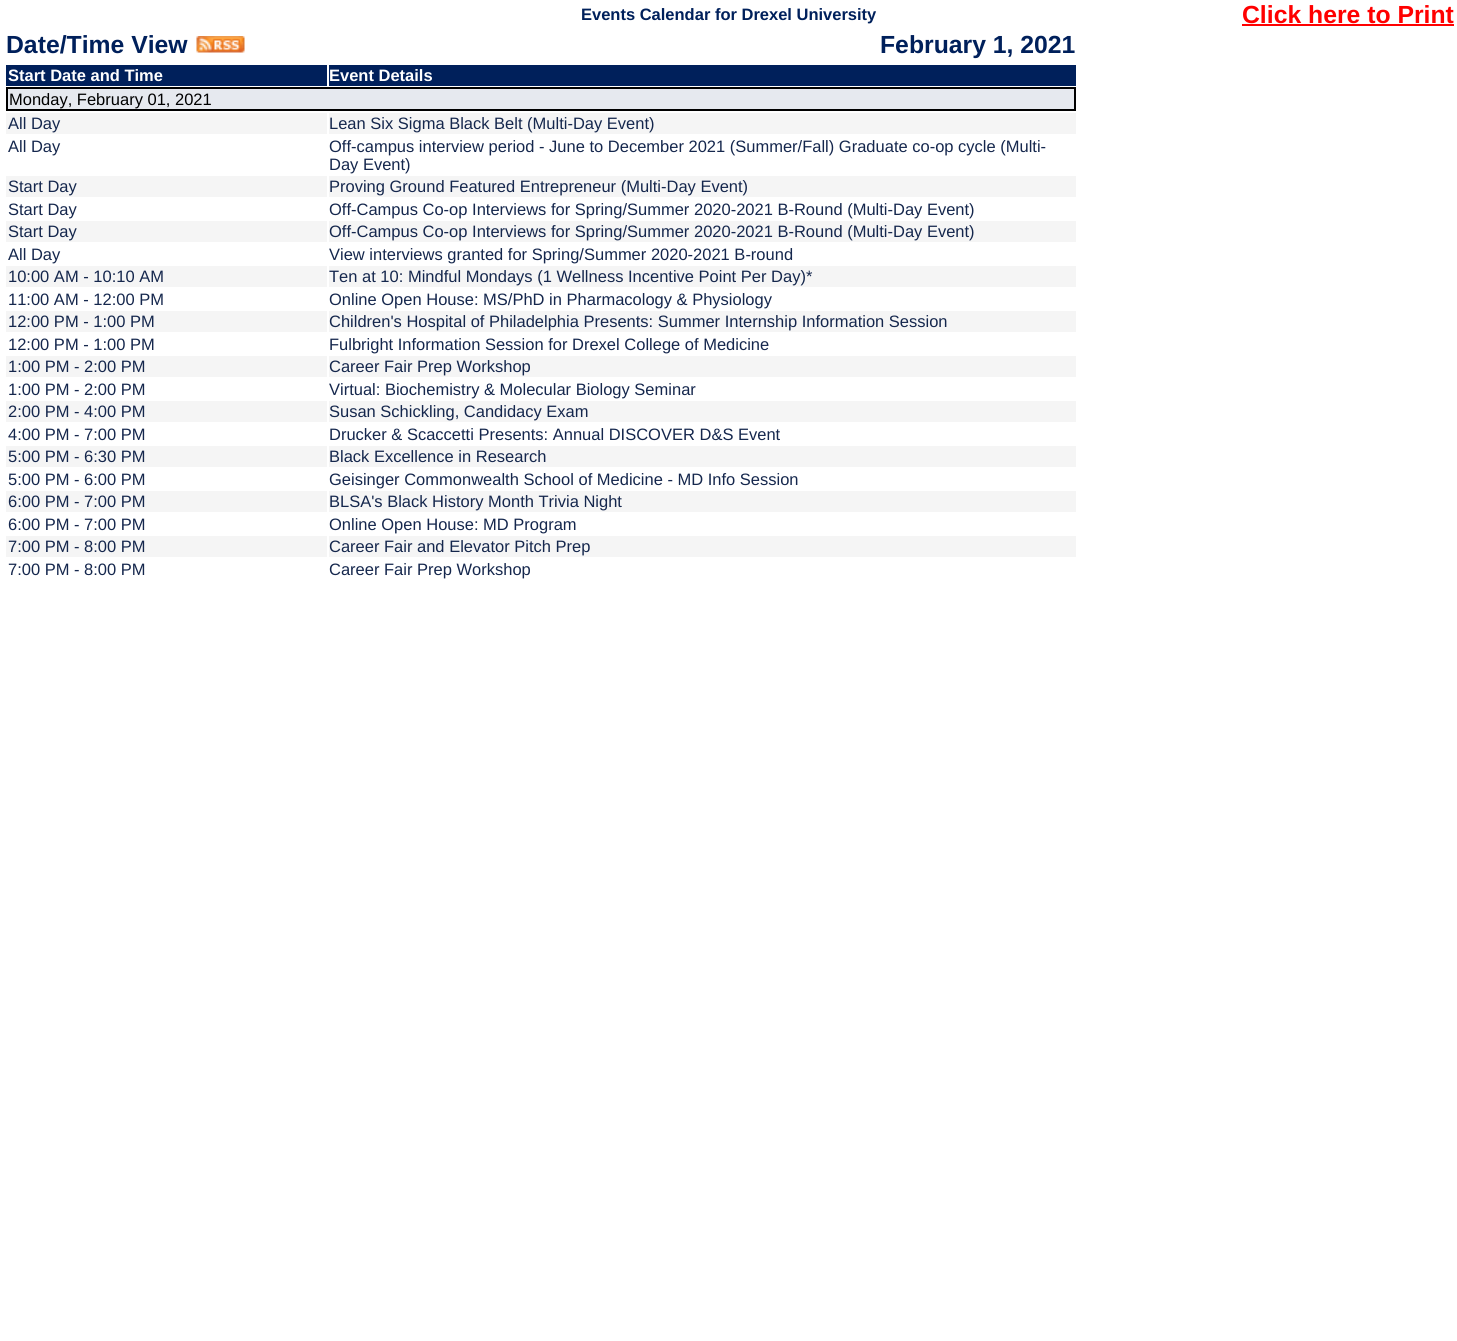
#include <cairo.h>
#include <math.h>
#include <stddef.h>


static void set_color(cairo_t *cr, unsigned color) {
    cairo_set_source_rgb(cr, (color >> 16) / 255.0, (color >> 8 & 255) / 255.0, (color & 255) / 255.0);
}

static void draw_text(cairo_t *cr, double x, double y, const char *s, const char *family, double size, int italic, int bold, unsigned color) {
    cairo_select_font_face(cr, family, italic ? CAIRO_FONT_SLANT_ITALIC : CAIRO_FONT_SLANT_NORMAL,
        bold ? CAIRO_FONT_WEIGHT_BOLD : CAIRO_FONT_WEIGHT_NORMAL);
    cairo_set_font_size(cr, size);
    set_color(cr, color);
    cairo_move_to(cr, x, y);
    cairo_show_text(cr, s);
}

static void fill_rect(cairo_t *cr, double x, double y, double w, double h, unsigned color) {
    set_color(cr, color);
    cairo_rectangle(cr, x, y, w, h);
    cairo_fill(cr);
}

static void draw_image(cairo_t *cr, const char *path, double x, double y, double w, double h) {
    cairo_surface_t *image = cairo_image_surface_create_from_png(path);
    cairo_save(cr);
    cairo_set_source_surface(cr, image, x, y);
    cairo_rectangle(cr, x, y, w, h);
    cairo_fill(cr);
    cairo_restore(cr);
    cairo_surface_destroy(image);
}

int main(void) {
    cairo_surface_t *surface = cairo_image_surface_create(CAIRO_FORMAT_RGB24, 1457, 1341);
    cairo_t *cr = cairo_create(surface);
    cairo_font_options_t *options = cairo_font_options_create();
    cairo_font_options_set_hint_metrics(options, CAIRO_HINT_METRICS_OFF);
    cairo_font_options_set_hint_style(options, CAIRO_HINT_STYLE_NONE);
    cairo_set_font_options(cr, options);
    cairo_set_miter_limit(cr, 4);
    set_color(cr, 0xFFFFFF);
    cairo_paint(cr);
    draw_text(cr, 581, 20, "Events Calendar for Drexel University", "Liberation Sans", 16.5, 0, 1, 0x00205B);
    draw_text(cr, 1242, 23, "Click here to Print", "Liberation Sans", 24.75, 0, 1, 0xFF0000);
    fill_rect(cr, 1242, 24, 212, 2, 0xFF0000);
    draw_text(cr, 6, 53, "Date/Time View", "Liberation Sans", 24.75, 0, 1, 0x00205B);
    draw_image(cr, "assets/img1.png", 196, 36, 49, 17);
    draw_text(cr, 880, 53, "February 1, 2021", "Liberation Sans", 24.75, 0, 1, 0x00205B);
    fill_rect(cr, 6, 65, 321, 21, 0x00205B);
    draw_text(cr, 8, 81, "Start Date and Time", "Liberation Sans", 16.5, 0, 1, 0xFFFFFF);
    fill_rect(cr, 329, 65, 747, 21, 0x00205B);
    draw_text(cr, 329, 81, "Event Details", "Liberation Sans", 16.5, 0, 1, 0xFFFFFF);
    set_color(cr, 0xE6E9EF);
    cairo_rectangle(cr, 7, 88, 1068, 22);
    cairo_fill_preserve(cr);
    set_color(cr, 0x000000);
    cairo_stroke(cr);
    draw_text(cr, 9, 105, "Monday, February 01, 2021", "Liberation Sans", 16.5, 0, 0, 0x000000);
    fill_rect(cr, 6, 113, 321, 21, 0xF5F5F5);
    draw_text(cr, 8, 129, "All Day", "Liberation Sans", 16.5, 0, 0, 0x15274D);
    fill_rect(cr, 329, 113, 747, 21, 0xF5F5F5);
    draw_text(cr, 329, 129, "Lean Six Sigma Black Belt (Multi-Day Event)", "Liberation Sans", 16.5, 0, 0, 0x15274D);
    draw_text(cr, 8, 152, "All Day", "Liberation Sans", 16.5, 0, 0, 0x15274D);
    draw_text(cr, 329, 152, "Off-campus interview period - June to December 2021 (Summer/Fall) Graduate co-op cycle (Multi-", "Liberation Sans", 16.5, 0, 0, 0x15274D);
    draw_text(cr, 329, 170, "Day Event)", "Liberation Sans", 16.5, 0, 0, 0x15274D);
    fill_rect(cr, 6, 176, 321, 21, 0xF5F5F5);
    draw_text(cr, 8, 192, "Start Day", "Liberation Sans", 16.5, 0, 0, 0x15274D);
    fill_rect(cr, 329, 176, 747, 21, 0xF5F5F5);
    draw_text(cr, 329, 192, "Proving Ground Featured Entrepreneur (Multi-Day Event)", "Liberation Sans", 16.5, 0, 0, 0x15274D);
    draw_text(cr, 8, 215, "Start Day", "Liberation Sans", 16.5, 0, 0, 0x15274D);
    draw_text(cr, 329, 215, "Off-Campus Co-op Interviews for Spring/Summer 2020-2021 B-Round (Multi-Day Event)", "Liberation Sans", 16.5, 0, 0, 0x15274D);
    fill_rect(cr, 6, 221, 321, 21, 0xF5F5F5);
    draw_text(cr, 8, 237, "Start Day", "Liberation Sans", 16.5, 0, 0, 0x15274D);
    fill_rect(cr, 329, 221, 747, 21, 0xF5F5F5);
    draw_text(cr, 329, 237, "Off-Campus Co-op Interviews for Spring/Summer 2020-2021 B-Round (Multi-Day Event)", "Liberation Sans", 16.5, 0, 0, 0x15274D);
    draw_text(cr, 8, 260, "All Day", "Liberation Sans", 16.5, 0, 0, 0x15274D);
    draw_text(cr, 329, 260, "View interviews granted for Spring/Summer 2020-2021 B-round", "Liberation Sans", 16.5, 0, 0, 0x15274D);
    fill_rect(cr, 6, 266, 321, 21, 0xF5F5F5);
    draw_text(cr, 8, 282, "10:00 AM - 10:10 AM", "Liberation Sans", 16.5, 0, 0, 0x15274D);
    fill_rect(cr, 329, 266, 747, 21, 0xF5F5F5);
    draw_text(cr, 329, 282, "Ten at 10: Mindful Mondays (1 Wellness Incentive Point Per Day)*", "Liberation Sans", 16.5, 0, 0, 0x15274D);
    draw_text(cr, 8, 305, "11:00 AM - 12:00 PM", "Liberation Sans", 16.5, 0, 0, 0x15274D);
    draw_text(cr, 329, 305, "Online Open House: MS/PhD in Pharmacology & Physiology", "Liberation Sans", 16.5, 0, 0, 0x15274D);
    fill_rect(cr, 6, 311, 321, 21, 0xF5F5F5);
    draw_text(cr, 8, 327, "12:00 PM - 1:00 PM", "Liberation Sans", 16.5, 0, 0, 0x15274D);
    fill_rect(cr, 329, 311, 747, 21, 0xF5F5F5);
    draw_text(cr, 329, 327, "Children's Hospital of Philadelphia Presents: Summer Internship Information Session", "Liberation Sans", 16.5, 0, 0, 0x15274D);
    draw_text(cr, 8, 350, "12:00 PM - 1:00 PM", "Liberation Sans", 16.5, 0, 0, 0x15274D);
    draw_text(cr, 329, 350, "Fulbright Information Session for Drexel College of Medicine", "Liberation Sans", 16.5, 0, 0, 0x15274D);
    fill_rect(cr, 6, 356, 321, 21, 0xF5F5F5);
    draw_text(cr, 8, 372, "1:00 PM - 2:00 PM", "Liberation Sans", 16.5, 0, 0, 0x15274D);
    fill_rect(cr, 329, 356, 747, 21, 0xF5F5F5);
    draw_text(cr, 329, 372, "Career Fair Prep Workshop", "Liberation Sans", 16.5, 0, 0, 0x15274D);
    draw_text(cr, 8, 395, "1:00 PM - 2:00 PM", "Liberation Sans", 16.5, 0, 0, 0x15274D);
    draw_text(cr, 329, 395, "Virtual: Biochemistry & Molecular Biology Seminar", "Liberation Sans", 16.5, 0, 0, 0x15274D);
    fill_rect(cr, 6, 401, 321, 21, 0xF5F5F5);
    draw_text(cr, 8, 417, "2:00 PM - 4:00 PM", "Liberation Sans", 16.5, 0, 0, 0x15274D);
    fill_rect(cr, 329, 401, 747, 21, 0xF5F5F5);
    draw_text(cr, 329, 417, "Susan Schickling, Candidacy Exam", "Liberation Sans", 16.5, 0, 0, 0x15274D);
    draw_text(cr, 8, 440, "4:00 PM - 7:00 PM", "Liberation Sans", 16.5, 0, 0, 0x15274D);
    draw_text(cr, 329, 440, "Drucker & Scaccetti Presents: Annual DISCOVER D&S Event", "Liberation Sans", 16.5, 0, 0, 0x15274D);
    fill_rect(cr, 6, 446, 321, 21, 0xF5F5F5);
    draw_text(cr, 8, 462, "5:00 PM - 6:30 PM", "Liberation Sans", 16.5, 0, 0, 0x15274D);
    fill_rect(cr, 329, 446, 747, 21, 0xF5F5F5);
    draw_text(cr, 329, 462, "Black Excellence in Research", "Liberation Sans", 16.5, 0, 0, 0x15274D);
    draw_text(cr, 8, 485, "5:00 PM - 6:00 PM", "Liberation Sans", 16.5, 0, 0, 0x15274D);
    draw_text(cr, 329, 485, "Geisinger Commonwealth School of Medicine - MD Info Session", "Liberation Sans", 16.5, 0, 0, 0x15274D);
    fill_rect(cr, 6, 491, 321, 21, 0xF5F5F5);
    draw_text(cr, 8, 507, "6:00 PM - 7:00 PM", "Liberation Sans", 16.5, 0, 0, 0x15274D);
    fill_rect(cr, 329, 491, 747, 21, 0xF5F5F5);
    draw_text(cr, 329, 507, "BLSA's Black History Month Trivia Night", "Liberation Sans", 16.5, 0, 0, 0x15274D);
    draw_text(cr, 8, 530, "6:00 PM - 7:00 PM", "Liberation Sans", 16.5, 0, 0, 0x15274D);
    draw_text(cr, 329, 530, "Online Open House: MD Program", "Liberation Sans", 16.5, 0, 0, 0x15274D);
    fill_rect(cr, 6, 536, 321, 21, 0xF5F5F5);
    draw_text(cr, 8, 552, "7:00 PM - 8:00 PM", "Liberation Sans", 16.5, 0, 0, 0x15274D);
    fill_rect(cr, 329, 536, 747, 21, 0xF5F5F5);
    draw_text(cr, 329, 552, "Career Fair and Elevator Pitch Prep", "Liberation Sans", 16.5, 0, 0, 0x15274D);
    draw_text(cr, 8, 575, "7:00 PM - 8:00 PM", "Liberation Sans", 16.5, 0, 0, 0x15274D);
    draw_text(cr, 329, 575, "Career Fair Prep Workshop", "Liberation Sans", 16.5, 0, 0, 0x15274D);
    cairo_surface_write_to_png(surface, "output.png");
    cairo_font_options_destroy(options);
    cairo_destroy(cr);
    cairo_surface_destroy(surface);
    return 0;
}
